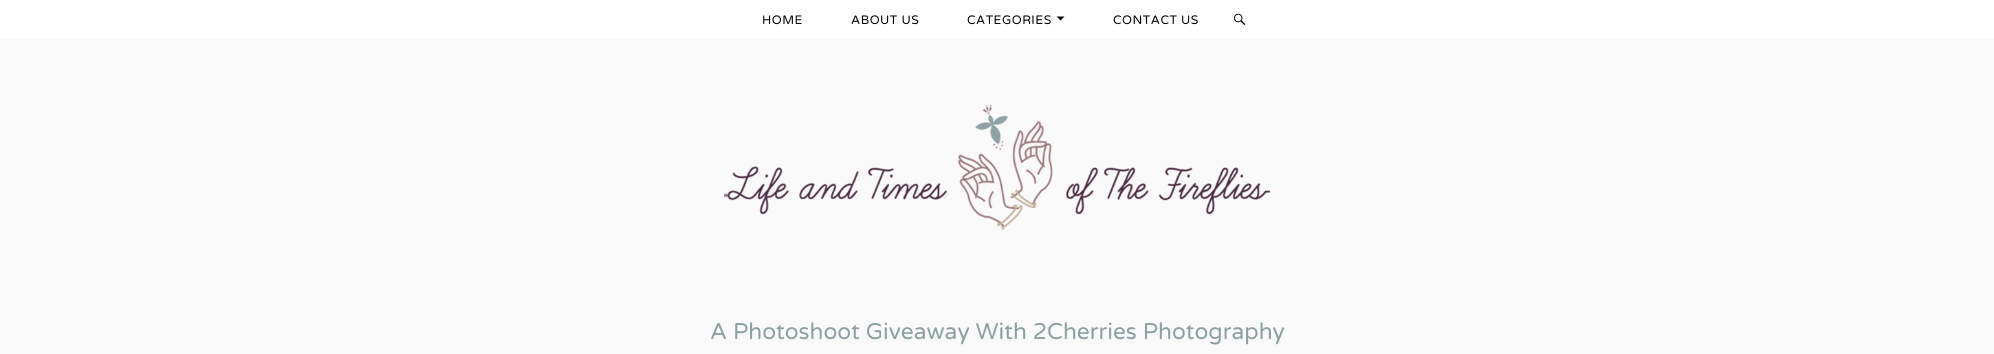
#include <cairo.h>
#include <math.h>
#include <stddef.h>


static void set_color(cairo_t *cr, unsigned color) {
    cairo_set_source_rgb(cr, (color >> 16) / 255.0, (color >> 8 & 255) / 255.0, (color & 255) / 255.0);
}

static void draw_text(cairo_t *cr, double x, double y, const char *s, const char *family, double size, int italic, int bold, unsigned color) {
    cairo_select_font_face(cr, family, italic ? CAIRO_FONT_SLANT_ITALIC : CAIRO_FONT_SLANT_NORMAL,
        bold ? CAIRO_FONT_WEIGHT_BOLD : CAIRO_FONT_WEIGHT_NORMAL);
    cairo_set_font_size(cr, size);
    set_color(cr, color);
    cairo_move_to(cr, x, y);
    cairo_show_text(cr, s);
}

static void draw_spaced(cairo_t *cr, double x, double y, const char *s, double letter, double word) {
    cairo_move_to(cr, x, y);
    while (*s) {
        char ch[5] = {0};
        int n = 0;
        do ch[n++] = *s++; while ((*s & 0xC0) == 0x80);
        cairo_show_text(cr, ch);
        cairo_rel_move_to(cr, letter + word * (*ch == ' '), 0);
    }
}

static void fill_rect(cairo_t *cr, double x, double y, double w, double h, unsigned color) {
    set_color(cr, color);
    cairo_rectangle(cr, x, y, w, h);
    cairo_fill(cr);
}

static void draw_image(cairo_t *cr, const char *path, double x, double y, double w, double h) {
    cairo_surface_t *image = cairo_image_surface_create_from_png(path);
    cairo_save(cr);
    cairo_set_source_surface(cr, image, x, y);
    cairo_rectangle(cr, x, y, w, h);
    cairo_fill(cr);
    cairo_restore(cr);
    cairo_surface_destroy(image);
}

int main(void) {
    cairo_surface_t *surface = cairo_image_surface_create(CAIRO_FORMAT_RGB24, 1994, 354);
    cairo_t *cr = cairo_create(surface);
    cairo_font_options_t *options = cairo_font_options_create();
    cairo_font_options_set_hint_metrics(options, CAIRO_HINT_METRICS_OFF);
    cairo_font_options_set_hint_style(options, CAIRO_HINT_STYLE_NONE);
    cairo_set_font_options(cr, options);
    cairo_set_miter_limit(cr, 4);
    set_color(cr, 0xF9F9F9);
    cairo_paint(cr);
    fill_rect(cr, 0, 0, 1994, 39, 0xFFFFFF);
    cairo_select_font_face(cr, "Varela Round", CAIRO_FONT_SLANT_NORMAL, CAIRO_FONT_WEIGHT_NORMAL);
    cairo_set_font_size(cr, 12.25);
    set_color(cr, 0x000000);
    draw_spaced(cr, 762, 24, "HOME", 0.5, 0);
    draw_spaced(cr, 851, 24, "ABOUT US", 0.5, 0);
    draw_spaced(cr, 967, 24, "CATEGORIES", 0.5, 0);
    cairo_new_path(cr);
    cairo_move_to(cr, 1056.5, 16.5);
    cairo_line_to(cr, 1064.5, 16.5);
    cairo_line_to(cr, 1060.5, 20.5);
    cairo_close_path(cr);
    cairo_fill(cr);
    draw_spaced(cr, 1113, 24, "CONTACT US", 0.5, 0);
    draw_image(cr, "assets/img1.png", 1233, 13, 13, 12);
    draw_image(cr, "assets/img2.png", 724, 105, 546, 125);
    draw_text(cr, 710, 339, "A Photoshoot Giveaway With 2Cherries Photography", "Varela Round", 22.8, 0, 0, 0x8E9FA1);
    cairo_surface_write_to_png(surface, "output.png");
    cairo_font_options_destroy(options);
    cairo_destroy(cr);
    cairo_surface_destroy(surface);
    return 0;
}
